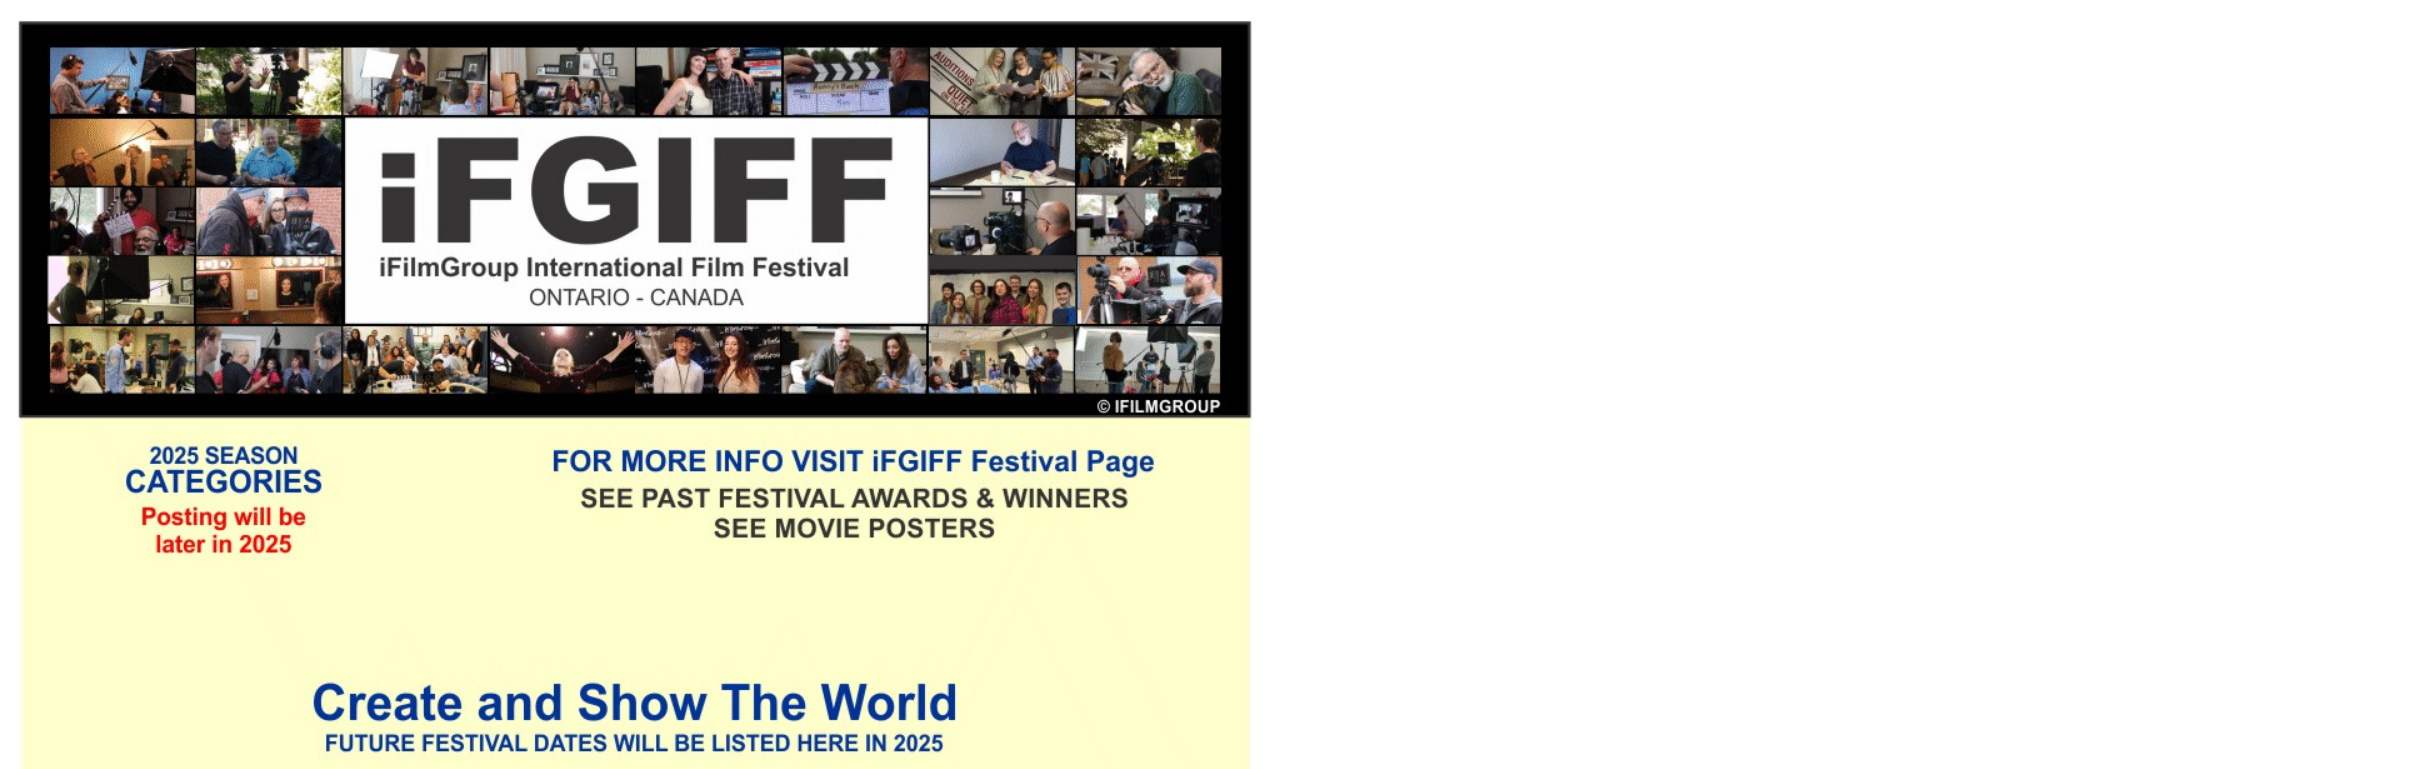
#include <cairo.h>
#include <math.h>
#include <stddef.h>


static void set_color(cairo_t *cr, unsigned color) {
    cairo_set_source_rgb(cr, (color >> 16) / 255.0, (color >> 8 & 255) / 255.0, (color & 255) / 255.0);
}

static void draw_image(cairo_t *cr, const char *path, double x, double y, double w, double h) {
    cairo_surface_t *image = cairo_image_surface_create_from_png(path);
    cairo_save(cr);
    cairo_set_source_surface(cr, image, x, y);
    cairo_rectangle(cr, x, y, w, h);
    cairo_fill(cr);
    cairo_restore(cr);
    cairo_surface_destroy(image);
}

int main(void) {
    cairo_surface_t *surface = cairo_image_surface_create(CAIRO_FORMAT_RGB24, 2413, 769);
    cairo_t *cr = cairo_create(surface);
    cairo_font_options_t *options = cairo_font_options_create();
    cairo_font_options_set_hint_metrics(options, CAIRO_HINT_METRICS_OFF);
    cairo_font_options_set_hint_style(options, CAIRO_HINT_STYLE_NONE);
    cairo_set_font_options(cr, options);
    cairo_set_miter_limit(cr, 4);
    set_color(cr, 0xFFFFFF);
    cairo_paint(cr);
    draw_image(cr, "assets/img1.png", 17, 20, 1236, 749);
    cairo_surface_write_to_png(surface, "output.png");
    cairo_font_options_destroy(options);
    cairo_destroy(cr);
    cairo_surface_destroy(surface);
    return 0;
}
